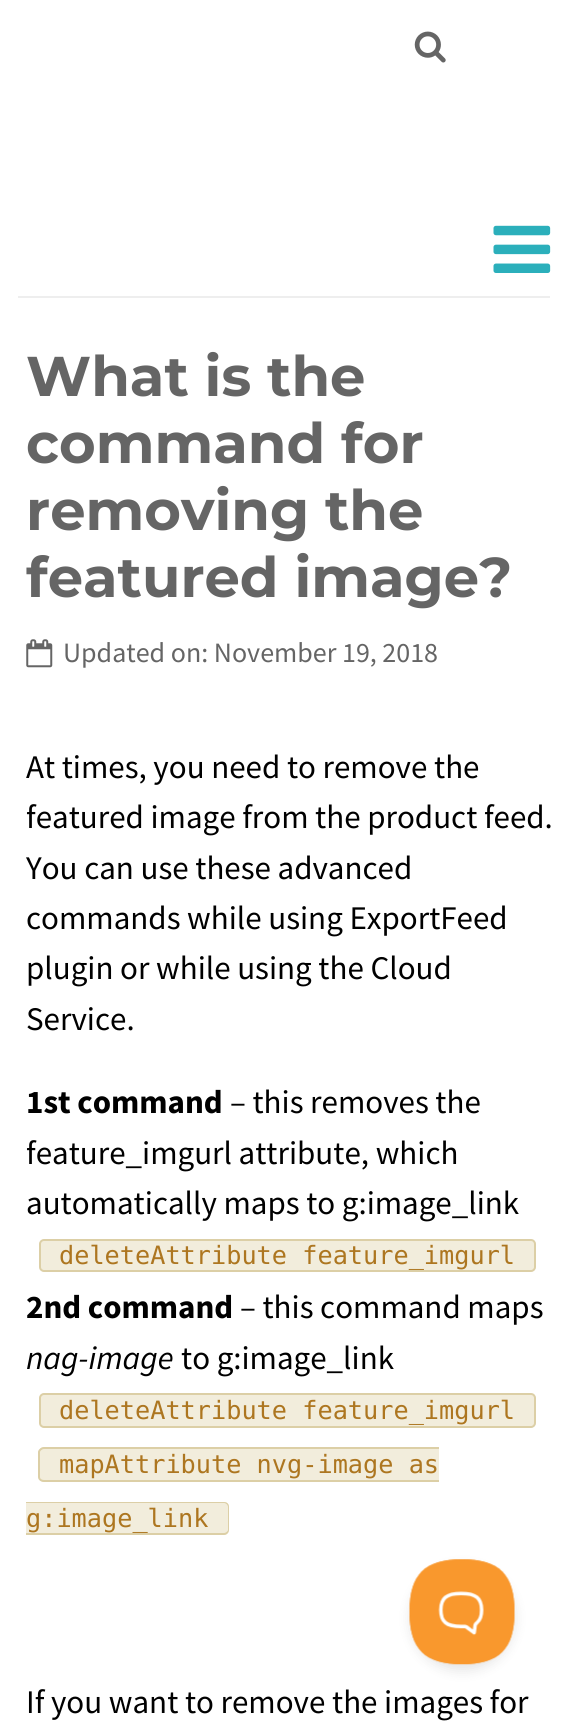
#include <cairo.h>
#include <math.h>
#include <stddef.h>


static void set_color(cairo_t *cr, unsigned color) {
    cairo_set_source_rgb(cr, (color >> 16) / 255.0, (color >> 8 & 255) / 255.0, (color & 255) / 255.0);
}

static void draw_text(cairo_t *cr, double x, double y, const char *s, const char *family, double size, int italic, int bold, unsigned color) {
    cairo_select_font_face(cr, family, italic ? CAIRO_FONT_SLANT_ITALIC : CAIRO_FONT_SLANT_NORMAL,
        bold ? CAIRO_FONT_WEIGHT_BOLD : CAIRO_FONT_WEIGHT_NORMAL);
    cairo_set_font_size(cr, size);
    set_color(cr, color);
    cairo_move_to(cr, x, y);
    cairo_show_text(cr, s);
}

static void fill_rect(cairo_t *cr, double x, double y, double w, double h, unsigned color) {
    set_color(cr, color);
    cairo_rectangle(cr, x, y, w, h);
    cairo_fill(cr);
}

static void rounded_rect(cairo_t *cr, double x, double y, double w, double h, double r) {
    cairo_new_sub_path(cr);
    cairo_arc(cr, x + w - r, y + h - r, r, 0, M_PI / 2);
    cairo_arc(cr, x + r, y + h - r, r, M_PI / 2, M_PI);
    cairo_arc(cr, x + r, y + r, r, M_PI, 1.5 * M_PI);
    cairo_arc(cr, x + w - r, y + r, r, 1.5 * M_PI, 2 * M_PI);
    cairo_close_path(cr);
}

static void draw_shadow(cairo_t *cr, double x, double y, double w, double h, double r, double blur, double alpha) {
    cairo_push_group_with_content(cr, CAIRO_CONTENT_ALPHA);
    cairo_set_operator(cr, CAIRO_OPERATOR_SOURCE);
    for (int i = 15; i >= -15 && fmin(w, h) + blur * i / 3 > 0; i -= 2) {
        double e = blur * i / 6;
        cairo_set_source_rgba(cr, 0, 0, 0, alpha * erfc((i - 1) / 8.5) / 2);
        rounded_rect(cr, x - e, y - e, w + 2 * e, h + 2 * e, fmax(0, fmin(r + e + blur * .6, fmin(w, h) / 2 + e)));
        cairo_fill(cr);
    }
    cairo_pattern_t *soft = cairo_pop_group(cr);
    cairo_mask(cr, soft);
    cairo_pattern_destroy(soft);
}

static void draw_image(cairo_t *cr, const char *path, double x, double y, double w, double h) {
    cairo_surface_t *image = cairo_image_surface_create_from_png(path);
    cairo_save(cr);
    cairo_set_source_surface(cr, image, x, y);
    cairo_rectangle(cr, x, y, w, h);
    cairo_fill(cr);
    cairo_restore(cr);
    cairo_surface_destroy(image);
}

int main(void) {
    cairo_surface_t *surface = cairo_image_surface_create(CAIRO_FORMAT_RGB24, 584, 1734);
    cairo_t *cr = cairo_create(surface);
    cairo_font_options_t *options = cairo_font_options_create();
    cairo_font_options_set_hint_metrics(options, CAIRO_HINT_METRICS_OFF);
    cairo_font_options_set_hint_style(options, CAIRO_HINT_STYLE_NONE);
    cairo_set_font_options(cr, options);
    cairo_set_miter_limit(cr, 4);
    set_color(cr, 0xFFFFFF);
    cairo_paint(cr);
    fill_rect(cr, 18, 296, 532, 2, 0xEEEEEE);
    draw_image(cr, "assets/img1.png", 414, 31, 32, 32);
    draw_image(cr, "assets/img2.png", 493, 225, 58, 48);
    draw_text(cr, 26, 396, "What is the", "Montserrat", 56, 0, 1, 0x656565);
    draw_text(cr, 26, 463, "command for", "Montserrat", 56, 0, 1, 0x656565);
    draw_text(cr, 26, 530, "removing the", "Montserrat", 56, 0, 1, 0x656565);
    draw_text(cr, 26, 597, "featured image?", "Montserrat", 56, 0, 1, 0x656565);
    draw_image(cr, "assets/img3.png", 26, 639, 27, 29);
    draw_text(cr, 63, 662, "Updated on: November 19, 2018", "Source Sans Pro", 28, 0, 0, 0x656565);
    draw_text(cr, 26, 778, "At times, you need to remove the", "Source Sans Pro", 33, 0, 0, 0x000000);
    draw_text(cr, 26, 828, "featured image from the product feed.", "Source Sans Pro", 33, 0, 0, 0x000000);
    draw_text(cr, 26, 879, "You can use these advanced", "Source Sans Pro", 33, 0, 0, 0x000000);
    draw_text(cr, 26, 929, "commands while using ExportFeed", "Source Sans Pro", 33, 0, 0, 0x000000);
    draw_text(cr, 26, 979, "plugin or while using the Cloud", "Source Sans Pro", 33, 0, 0, 0x000000);
    draw_text(cr, 26, 1030, "Service.", "Source Sans Pro", 33, 0, 0, 0x000000);
    draw_text(cr, 26, 1113, "1st command", "Source Sans Pro", 33, 0, 1, 0x000000);
    draw_text(cr, 230, 1113, "– this removes the", "Source Sans Pro", 33, 0, 0, 0x000000);
    draw_text(cr, 26, 1164, "feature_imgurl attribute, which", "Source Sans Pro", 33, 0, 0, 0x000000);
    draw_text(cr, 26, 1214, "automatically maps to g:image_link", "Source Sans Pro", 33, 0, 0, 0x000000);
    set_color(cr, 0xF2EDDC);
    rounded_rect(cr, 40, 1240, 495, 31, 4);
    cairo_fill_preserve(cr);
    set_color(cr, 0xDCCFA6);
    cairo_stroke(cr);
    draw_text(cr, 59, 1264, "deleteAttribute feature_imgurl", "DejaVu Sans Mono", 25.25, 0, 0, 0xAD7620);
    draw_text(cr, 26, 1318, "2nd command", "Source Sans Pro", 33, 0, 1, 0x000000);
    draw_text(cr, 240, 1318, "– this command maps", "Source Sans Pro", 33, 0, 0, 0x000000);
    draw_text(cr, 26, 1369, "nag-image", "Source Sans Pro", 33, 1, 0, 0x000000);
    draw_text(cr, 181, 1369, "to g:image_link", "Source Sans Pro", 33, 0, 0, 0x000000);
    set_color(cr, 0xF2EDDC);
    rounded_rect(cr, 40, 1394, 495, 33, 4);
    cairo_fill_preserve(cr);
    set_color(cr, 0xDCCFA6);
    cairo_stroke(cr);
    draw_text(cr, 59, 1419, "deleteAttribute feature_imgurl", "DejaVu Sans Mono", 25.25, 0, 0, 0xAD7620);
    set_color(cr, 0xF2EDDC);
    cairo_new_path(cr);
    cairo_move_to(cr, 44, 1447);
    cairo_line_to(cr, 439, 1447);
    cairo_line_to(cr, 439, 1482);
    cairo_line_to(cr, 44, 1482);
    cairo_curve_to(cr, 41, 1482, 39, 1480, 39, 1477);
    cairo_line_to(cr, 39, 1452);
    cairo_curve_to(cr, 39, 1449, 41, 1447, 44, 1447);
    cairo_close_path(cr);
    cairo_fill(cr);
    set_color(cr, 0xDCCFA6);
    cairo_set_fill_rule(cr, CAIRO_FILL_RULE_EVEN_ODD);
    cairo_new_path(cr);
    cairo_move_to(cr, 44, 1447);
    cairo_line_to(cr, 439, 1447);
    cairo_line_to(cr, 439, 1482);
    cairo_line_to(cr, 44, 1482);
    cairo_curve_to(cr, 41, 1482, 38, 1480, 38, 1477);
    cairo_line_to(cr, 38, 1452);
    cairo_curve_to(cr, 38, 1450, 41, 1447, 44, 1447);
    cairo_close_path(cr);
    cairo_move_to(cr, 44, 1449);
    cairo_line_to(cr, 439, 1449);
    cairo_line_to(cr, 439, 1480);
    cairo_line_to(cr, 44, 1480);
    cairo_curve_to(cr, 42, 1480, 40, 1479, 40, 1477);
    cairo_line_to(cr, 40, 1452);
    cairo_curve_to(cr, 40, 1451, 42, 1449, 44, 1449);
    cairo_close_path(cr);
    cairo_fill(cr);
    draw_text(cr, 59, 1473, "mapAttribute nvg-image as", "DejaVu Sans Mono", 25.25, 0, 0, 0xAD7620);
    set_color(cr, 0xF2EDDC);
    cairo_new_path(cr);
    cairo_move_to(cr, 26, 1502);
    cairo_line_to(cr, 224, 1502);
    cairo_curve_to(cr, 227, 1502, 229, 1504, 229, 1507);
    cairo_line_to(cr, 229, 1530);
    cairo_curve_to(cr, 229, 1533, 227, 1535, 224, 1535);
    cairo_line_to(cr, 26, 1535);
    cairo_close_path(cr);
    cairo_fill(cr);
    set_color(cr, 0xDCCFA6);
    cairo_new_path(cr);
    cairo_move_to(cr, 26, 1502);
    cairo_line_to(cr, 224, 1502);
    cairo_curve_to(cr, 227, 1502, 229, 1504, 229, 1507);
    cairo_line_to(cr, 229, 1530);
    cairo_curve_to(cr, 229, 1532, 227, 1535, 224, 1535);
    cairo_line_to(cr, 26, 1535);
    cairo_close_path(cr);
    cairo_move_to(cr, 26, 1503);
    cairo_line_to(cr, 224, 1503);
    cairo_curve_to(cr, 226, 1503, 228, 1505, 228, 1507);
    cairo_line_to(cr, 228, 1530);
    cairo_curve_to(cr, 228, 1531, 226, 1533, 224, 1533);
    cairo_line_to(cr, 26, 1533);
    cairo_close_path(cr);
    cairo_fill(cr);
    draw_text(cr, 26, 1527, "g:image_link", "DejaVu Sans Mono", 25.25, 0, 0, 0xAD7620);
    draw_text(cr, 26, 1713, "If you want to remove the images for", "Source Sans Pro", 33, 0, 0, 0x000000);
    set_color(cr, 0x000000);
    draw_shadow(cr, 410, 1566, 105, 105, 52.5, 6, 0.1);
    draw_image(cr, "assets/img4.png", 409, 1559, 106, 106);
    cairo_surface_write_to_png(surface, "output.png");
    cairo_font_options_destroy(options);
    cairo_destroy(cr);
    cairo_surface_destroy(surface);
    return 0;
}
